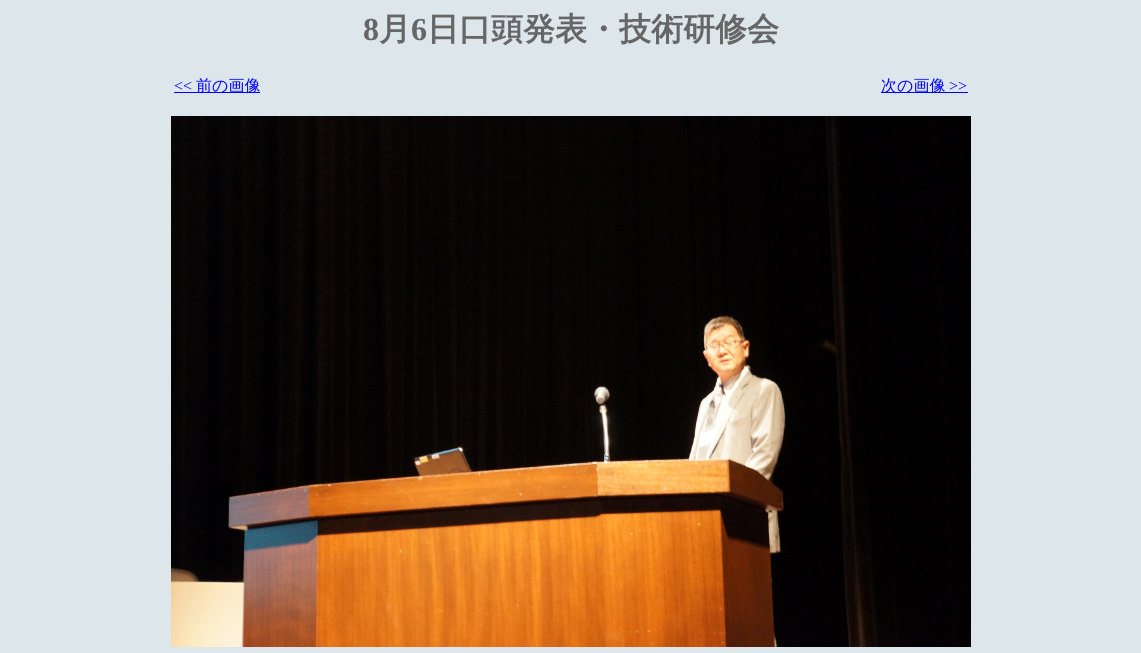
#include <cairo.h>
#include <math.h>
#include <stddef.h>


static void set_color(cairo_t *cr, unsigned color) {
    cairo_set_source_rgb(cr, (color >> 16) / 255.0, (color >> 8 & 255) / 255.0, (color & 255) / 255.0);
}

static void draw_text(cairo_t *cr, double x, double y, const char *s, const char *family, double size, int italic, int bold, unsigned color) {
    cairo_select_font_face(cr, family, italic ? CAIRO_FONT_SLANT_ITALIC : CAIRO_FONT_SLANT_NORMAL,
        bold ? CAIRO_FONT_WEIGHT_BOLD : CAIRO_FONT_WEIGHT_NORMAL);
    cairo_set_font_size(cr, size);
    set_color(cr, color);
    cairo_move_to(cr, x, y);
    cairo_show_text(cr, s);
}

static void fill_rect(cairo_t *cr, double x, double y, double w, double h, unsigned color) {
    set_color(cr, color);
    cairo_rectangle(cr, x, y, w, h);
    cairo_fill(cr);
}

static void draw_image(cairo_t *cr, const char *path, double x, double y, double w, double h) {
    cairo_surface_t *image = cairo_image_surface_create_from_png(path);
    cairo_save(cr);
    cairo_set_source_surface(cr, image, x, y);
    cairo_rectangle(cr, x, y, w, h);
    cairo_fill(cr);
    cairo_restore(cr);
    cairo_surface_destroy(image);
}

int main(void) {
    cairo_surface_t *surface = cairo_image_surface_create(CAIRO_FORMAT_RGB24, 1141, 653);
    cairo_t *cr = cairo_create(surface);
    cairo_font_options_t *options = cairo_font_options_create();
    cairo_font_options_set_hint_metrics(options, CAIRO_HINT_METRICS_OFF);
    cairo_font_options_set_hint_style(options, CAIRO_HINT_STYLE_NONE);
    cairo_set_font_options(cr, options);
    cairo_set_miter_limit(cr, 4);
    set_color(cr, 0xDCE6EB);
    cairo_paint(cr);
    draw_text(cr, 363, 40, "8", "Liberation Serif", 32, 0, 1, 0x666666);
    draw_text(cr, 379, 40, "月", "WenQuanYi Zen Hei", 32, 0, 1, 0x666666);
    draw_text(cr, 411, 40, "6", "Liberation Serif", 32, 0, 1, 0x666666);
    draw_text(cr, 427, 40, "日口頭発表・技術研修会", "WenQuanYi Zen Hei", 32, 0, 1, 0x666666);
    draw_text(cr, 174, 91, "<<", "Liberation Serif", 16, 0, 0, 0x0000FF);
    fill_rect(cr, 174, 92, 86, 1, 0x0000FF);
    draw_text(cr, 196, 91, "前の画像", "WenQuanYi Zen Hei Medium", 16, 0, 0, 0x0000FF);
    fill_rect(cr, 881, 92, 87, 1, 0x0000FF);
    draw_text(cr, 881, 91, "次の画像", "WenQuanYi Zen Hei Medium", 16, 0, 0, 0x0000FF);
    draw_text(cr, 949, 91, ">>", "Liberation Serif", 16, 0, 0, 0x0000FF);
    draw_image(cr, "assets/img1.png", 171, 116, 800, 531);
    cairo_surface_write_to_png(surface, "output.png");
    cairo_font_options_destroy(options);
    cairo_destroy(cr);
    cairo_surface_destroy(surface);
    return 0;
}
